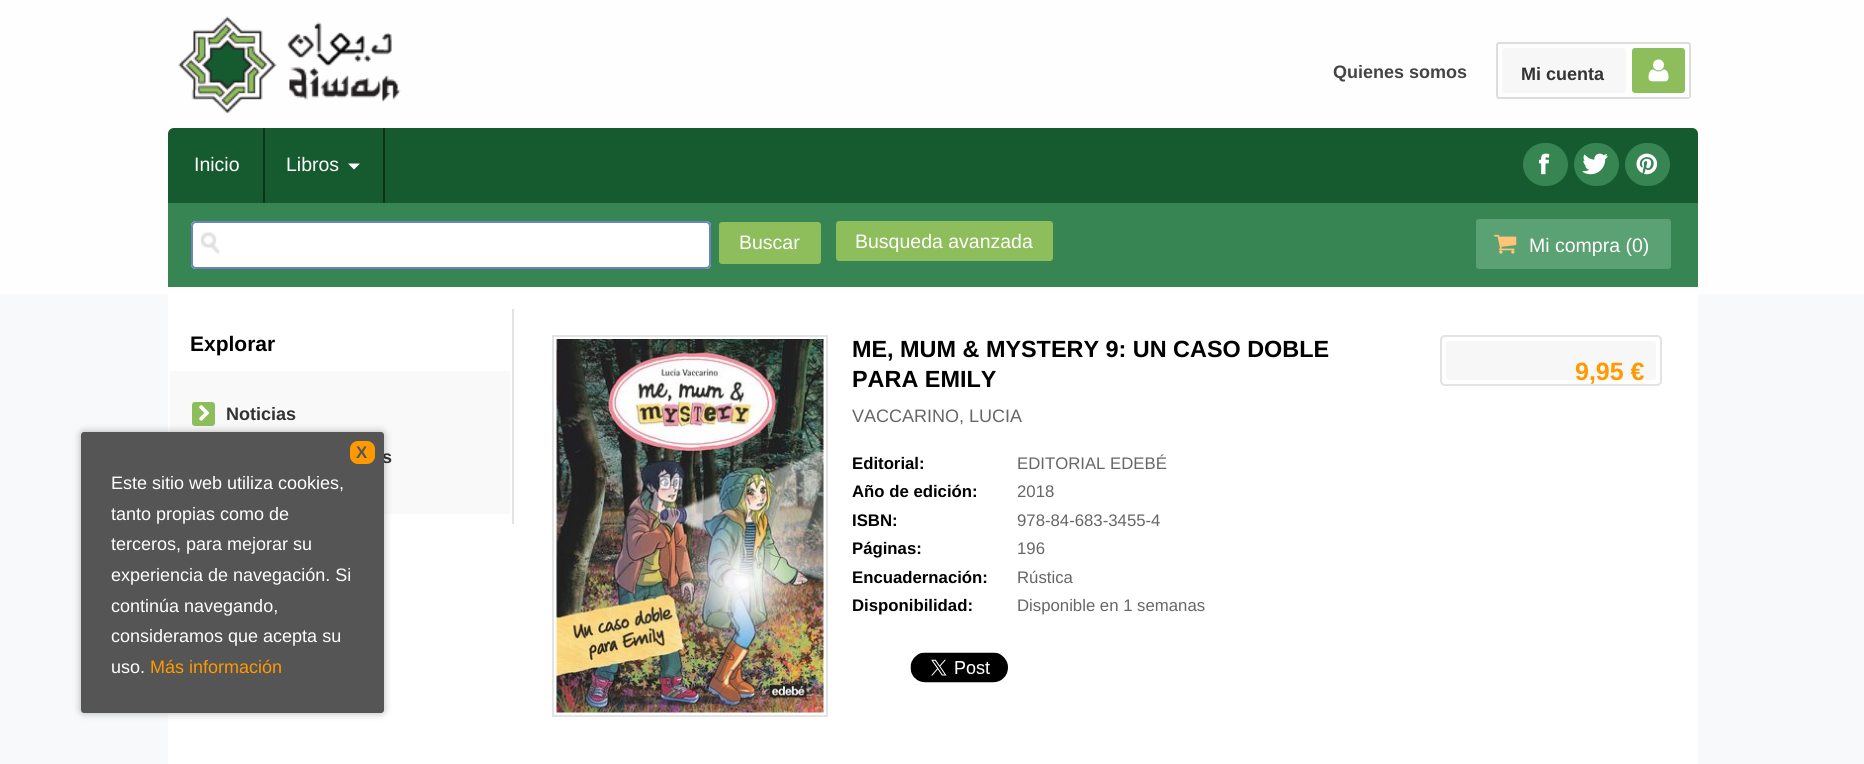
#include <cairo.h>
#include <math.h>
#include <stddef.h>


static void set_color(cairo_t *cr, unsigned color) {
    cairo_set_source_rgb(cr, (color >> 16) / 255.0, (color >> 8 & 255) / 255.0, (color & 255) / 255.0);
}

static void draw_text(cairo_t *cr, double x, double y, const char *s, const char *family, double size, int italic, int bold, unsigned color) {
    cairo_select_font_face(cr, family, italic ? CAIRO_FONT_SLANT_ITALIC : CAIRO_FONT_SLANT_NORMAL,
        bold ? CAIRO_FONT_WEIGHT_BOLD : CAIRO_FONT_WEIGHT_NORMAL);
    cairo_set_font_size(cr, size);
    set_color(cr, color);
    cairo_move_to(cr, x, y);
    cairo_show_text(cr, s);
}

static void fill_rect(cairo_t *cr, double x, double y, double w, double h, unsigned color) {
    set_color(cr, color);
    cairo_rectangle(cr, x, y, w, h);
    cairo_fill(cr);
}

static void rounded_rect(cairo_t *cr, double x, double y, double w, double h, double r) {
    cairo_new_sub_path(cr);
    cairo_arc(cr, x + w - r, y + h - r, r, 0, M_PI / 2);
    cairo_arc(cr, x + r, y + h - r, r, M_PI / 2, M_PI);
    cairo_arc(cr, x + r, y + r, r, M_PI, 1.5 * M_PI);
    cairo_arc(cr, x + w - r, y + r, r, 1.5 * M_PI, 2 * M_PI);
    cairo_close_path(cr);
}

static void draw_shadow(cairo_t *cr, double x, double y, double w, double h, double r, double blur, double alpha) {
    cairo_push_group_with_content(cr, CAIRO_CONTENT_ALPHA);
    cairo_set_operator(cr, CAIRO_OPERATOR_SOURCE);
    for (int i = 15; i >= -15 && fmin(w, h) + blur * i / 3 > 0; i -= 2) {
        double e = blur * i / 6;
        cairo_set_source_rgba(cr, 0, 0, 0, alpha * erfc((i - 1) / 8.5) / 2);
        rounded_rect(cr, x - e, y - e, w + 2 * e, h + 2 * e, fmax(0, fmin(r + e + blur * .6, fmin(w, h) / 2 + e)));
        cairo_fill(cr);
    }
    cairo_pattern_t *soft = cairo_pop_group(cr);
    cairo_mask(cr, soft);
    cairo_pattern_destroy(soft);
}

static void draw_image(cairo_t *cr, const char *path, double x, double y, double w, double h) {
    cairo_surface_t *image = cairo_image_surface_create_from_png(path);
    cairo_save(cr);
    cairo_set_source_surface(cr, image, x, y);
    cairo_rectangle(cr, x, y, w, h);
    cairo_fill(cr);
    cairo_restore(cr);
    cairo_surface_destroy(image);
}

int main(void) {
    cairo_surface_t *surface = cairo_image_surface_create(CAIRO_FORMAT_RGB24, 1864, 764);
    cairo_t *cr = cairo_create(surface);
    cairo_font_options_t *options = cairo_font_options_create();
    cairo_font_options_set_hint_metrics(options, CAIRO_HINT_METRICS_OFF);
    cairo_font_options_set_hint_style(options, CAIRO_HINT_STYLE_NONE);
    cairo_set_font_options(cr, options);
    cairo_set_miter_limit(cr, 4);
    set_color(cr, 0xF8F9FA);
    cairo_paint(cr);
    fill_rect(cr, 0, 0, 1864, 294, 0xFEFEFF);
    draw_image(cr, "assets/img1.png", 178, 16, 223, 98);
    draw_text(cr, 1333, 78, "Quienes somos", "Liberation Sans", 18, 0, 1, 0x444444);
    rounded_rect(cr, 1497, 43, 193, 55, 2);
    set_color(cr, 0xDDDDDD);
    cairo_stroke(cr);
    set_color(cr, 0xF7F7F7);
    rounded_rect(cr, 1502, 48, 124, 45, 3);
    cairo_fill(cr);
    draw_text(cr, 1521, 80, "Mi cuenta", "Liberation Sans", 18, 0, 1, 0x333333);
    set_color(cr, 0x8EBD5B);
    rounded_rect(cr, 1632, 48, 53, 45, 3);
    cairo_fill(cr);
    draw_image(cr, "assets/img2.png", 1648, 59, 21, 23);
    set_color(cr, 0x165A2F);
    cairo_new_path(cr);
    cairo_move_to(cr, 174, 128);
    cairo_line_to(cr, 1692, 128);
    cairo_curve_to(cr, 1695.5, 128, 1698, 130.5, 1698, 134);
    cairo_line_to(cr, 1698, 203);
    cairo_line_to(cr, 168, 203);
    cairo_line_to(cr, 168, 134);
    cairo_curve_to(cr, 168, 130.5, 170.5, 128, 174, 128);
    cairo_close_path(cr);
    cairo_fill(cr);
    fill_rect(cr, 263, 128, 2, 75, 0x0D341B);
    draw_text(cr, 194, 171, "Inicio", "Liberation Sans", 19.5, 0, 0, 0xFFFFFF);
    fill_rect(cr, 383, 128, 2, 75, 0x0D341B);
    draw_text(cr, 286, 171, "Libros", "Liberation Sans", 19.5, 0, 0, 0xFFFFFF);
    cairo_new_path(cr);
    cairo_move_to(cr, 348, 163.5);
    cairo_line_to(cr, 360, 163.5);
    cairo_line_to(cr, 354, 169.5);
    cairo_close_path(cr);
    cairo_fill(cr);
    set_color(cr, 0x368552);
    rounded_rect(cr, 1523, 143, 45, 43, 21.5);
    cairo_fill(cr);
    draw_image(cr, "assets/img3.png", 1539, 153, 11, 22);
    rounded_rect(cr, 1574, 143, 45, 43, 21.5);
    cairo_fill(cr);
    draw_image(cr, "assets/img4.png", 1582, 153, 26, 22);
    rounded_rect(cr, 1625, 143, 45, 43, 21.5);
    cairo_fill(cr);
    draw_image(cr, "assets/img5.png", 1636, 153, 22, 22);
    fill_rect(cr, 168, 203, 1530, 84, 0x368552);
    set_color(cr, 0xFFFFFF);
    rounded_rect(cr, 191, 221, 520, 48, 5);
    cairo_fill(cr);
    draw_image(cr, "assets/img6.png", 201, 232, 19, 22);
    rounded_rect(cr, 192, 222, 518, 46, 4);
    set_color(cr, 0x6D82C1);
    cairo_stroke(cr);
    set_color(cr, 0x8EBD5B);
    rounded_rect(cr, 720, 223, 100, 40, 2);
    cairo_fill_preserve(cr);
    cairo_stroke(cr);
    draw_text(cr, 739, 249, "Buscar", "Liberation Sans", 19.5, 0, 0, 0xFFFFFF);
    set_color(cr, 0x8EBD5B);
    rounded_rect(cr, 837, 222, 215, 38, 2);
    cairo_fill_preserve(cr);
    cairo_stroke(cr);
    draw_text(cr, 855, 248, "Busqueda avanzada", "Liberation Sans", 19.5, 0, 0, 0xFFFFFF);
    set_color(cr, 0x5AA273);
    rounded_rect(cr, 1476, 219, 195, 50, 3);
    cairo_fill(cr);
    draw_image(cr, "assets/img7.png", 1494, 234, 23, 20);
    draw_text(cr, 1529, 252, "Mi compra (0)", "Liberation Sans", 19.5, 0, 0, 0xFFFFFF);
    fill_rect(cr, 168, 294, 1530, 470, 0xFFFFFF);
    fill_rect(cr, 512, 309, 2, 215, 0xE3E3E3);
    draw_text(cr, 190, 351, "Explorar", "Liberation Sans", 21, 0, 1, 0x000000);
    fill_rect(cr, 170, 371, 340, 143, 0xF9F9F9);
    set_color(cr, 0x8EBD5B);
    rounded_rect(cr, 192, 402, 23, 24, 3);
    cairo_fill(cr);
    draw_image(cr, "assets/img8.png", 199, 405, 10, 16);
    draw_text(cr, 226, 420, "Noticias", "Liberation Sans", 18, 0, 1, 0x333333);
    draw_text(cr, 382, 463, "s", "Liberation Sans", 18, 0, 1, 0x333333);
    cairo_rectangle(cr, 553, 336, 274, 380);
    set_color(cr, 0xE3E3E3);
    cairo_stroke(cr);
    draw_image(cr, "assets/img9.png", 556, 339, 268, 374);
    draw_text(cr, 852, 357, "ME, MUM & MYSTERY 9: UN CASO DOBLE", "Liberation Sans", 23.4, 0, 1, 0x000000);
    draw_text(cr, 852, 387, "PARA EMILY", "Liberation Sans", 23.4, 0, 1, 0x000000);
    draw_text(cr, 852, 422, "VACCARINO, LUCIA", "Liberation Sans", 18, 0, 0, 0x666666);
    draw_text(cr, 852, 469, "Editorial:", "Liberation Sans", 16.75, 0, 1, 0x000000);
    draw_text(cr, 1017, 469, "EDITORIAL EDEBÉ", "Liberation Sans", 16.75, 0, 0, 0x666666);
    draw_text(cr, 852, 497, "Año de edición:", "Liberation Sans", 16.75, 0, 1, 0x000000);
    draw_text(cr, 1017, 497, "2018", "Liberation Sans", 16.75, 0, 0, 0x666666);
    draw_text(cr, 852, 526, "ISBN:", "Liberation Sans", 16.75, 0, 1, 0x000000);
    draw_text(cr, 1017, 526, "978-84-683-3455-4", "Liberation Sans", 16.75, 0, 0, 0x666666);
    draw_text(cr, 852, 554, "Páginas:", "Liberation Sans", 16.75, 0, 1, 0x000000);
    draw_text(cr, 1017, 554, "196", "Liberation Sans", 16.75, 0, 0, 0x666666);
    draw_text(cr, 852, 583, "Encuadernación:", "Liberation Sans", 16.75, 0, 1, 0x000000);
    draw_text(cr, 1017, 583, "Rústica", "Liberation Sans", 16.75, 0, 0, 0x666666);
    draw_text(cr, 852, 611, "Disponibilidad:", "Liberation Sans", 16.75, 0, 1, 0x000000);
    draw_text(cr, 1017, 611, "Disponible en 1 semanas", "Liberation Sans", 16.75, 0, 0, 0x666666);
    draw_image(cr, "assets/img10.png", 910, 652, 98, 31);
    rounded_rect(cr, 1441, 336, 220, 49, 4);
    set_color(cr, 0xE3E3E3);
    cairo_stroke(cr);
    set_color(cr, 0xF7F7F7);
    rounded_rect(cr, 1446, 341, 210, 39, 3);
    cairo_fill(cr);
    draw_text(cr, 1575, 380, "9,95 €", "Liberation Sans", 25, 0, 1, 0xFF9900);
    set_color(cr, 0x000000);
    draw_shadow(cr, 81, 432, 303, 281, 3, 4, 0.3);
    set_color(cr, 0x555555);
    rounded_rect(cr, 81, 432, 303, 281, 3);
    cairo_fill(cr);
    set_color(cr, 0xFF9900);
    rounded_rect(cr, 350, 441, 25, 23, 8);
    cairo_fill(cr);
    draw_text(cr, 356, 458, "X", "Liberation Sans", 16.75, 0, 1, 0x555555);
    draw_text(cr, 111, 489, "Este sitio web utiliza cookies,", "Liberation Sans", 18, 0, 0, 0xFFFFFF);
    draw_text(cr, 111, 520, "tanto propias como de", "Liberation Sans", 18, 0, 0, 0xFFFFFF);
    draw_text(cr, 111, 550, "terceros, para mejorar su", "Liberation Sans", 18, 0, 0, 0xFFFFFF);
    draw_text(cr, 111, 581, "experiencia de navegación. Si", "Liberation Sans", 18, 0, 0, 0xFFFFFF);
    draw_text(cr, 111, 612, "continúa navegando,", "Liberation Sans", 18, 0, 0, 0xFFFFFF);
    draw_text(cr, 111, 642, "consideramos que acepta su", "Liberation Sans", 18, 0, 0, 0xFFFFFF);
    draw_text(cr, 111, 673, "uso.", "Liberation Sans", 18, 0, 0, 0xFFFFFF);
    draw_text(cr, 150, 673, "Más información", "Liberation Sans", 18, 0, 0, 0xFF9900);
    cairo_surface_write_to_png(surface, "output.png");
    cairo_font_options_destroy(options);
    cairo_destroy(cr);
    cairo_surface_destroy(surface);
    return 0;
}
